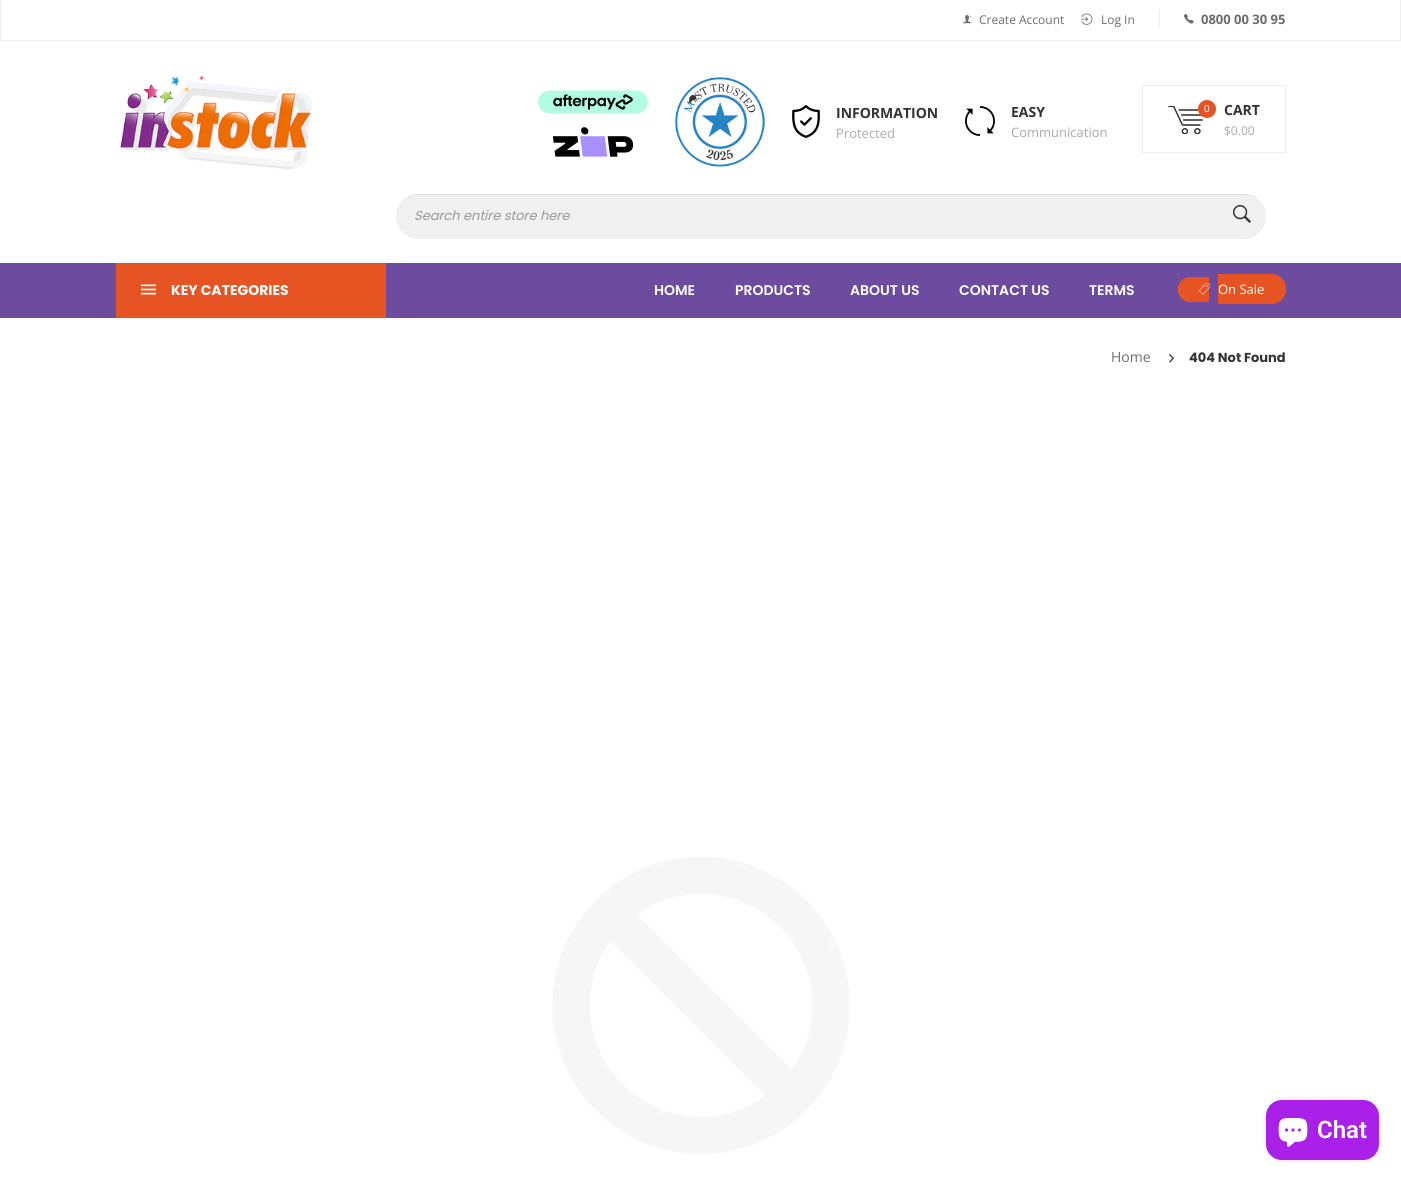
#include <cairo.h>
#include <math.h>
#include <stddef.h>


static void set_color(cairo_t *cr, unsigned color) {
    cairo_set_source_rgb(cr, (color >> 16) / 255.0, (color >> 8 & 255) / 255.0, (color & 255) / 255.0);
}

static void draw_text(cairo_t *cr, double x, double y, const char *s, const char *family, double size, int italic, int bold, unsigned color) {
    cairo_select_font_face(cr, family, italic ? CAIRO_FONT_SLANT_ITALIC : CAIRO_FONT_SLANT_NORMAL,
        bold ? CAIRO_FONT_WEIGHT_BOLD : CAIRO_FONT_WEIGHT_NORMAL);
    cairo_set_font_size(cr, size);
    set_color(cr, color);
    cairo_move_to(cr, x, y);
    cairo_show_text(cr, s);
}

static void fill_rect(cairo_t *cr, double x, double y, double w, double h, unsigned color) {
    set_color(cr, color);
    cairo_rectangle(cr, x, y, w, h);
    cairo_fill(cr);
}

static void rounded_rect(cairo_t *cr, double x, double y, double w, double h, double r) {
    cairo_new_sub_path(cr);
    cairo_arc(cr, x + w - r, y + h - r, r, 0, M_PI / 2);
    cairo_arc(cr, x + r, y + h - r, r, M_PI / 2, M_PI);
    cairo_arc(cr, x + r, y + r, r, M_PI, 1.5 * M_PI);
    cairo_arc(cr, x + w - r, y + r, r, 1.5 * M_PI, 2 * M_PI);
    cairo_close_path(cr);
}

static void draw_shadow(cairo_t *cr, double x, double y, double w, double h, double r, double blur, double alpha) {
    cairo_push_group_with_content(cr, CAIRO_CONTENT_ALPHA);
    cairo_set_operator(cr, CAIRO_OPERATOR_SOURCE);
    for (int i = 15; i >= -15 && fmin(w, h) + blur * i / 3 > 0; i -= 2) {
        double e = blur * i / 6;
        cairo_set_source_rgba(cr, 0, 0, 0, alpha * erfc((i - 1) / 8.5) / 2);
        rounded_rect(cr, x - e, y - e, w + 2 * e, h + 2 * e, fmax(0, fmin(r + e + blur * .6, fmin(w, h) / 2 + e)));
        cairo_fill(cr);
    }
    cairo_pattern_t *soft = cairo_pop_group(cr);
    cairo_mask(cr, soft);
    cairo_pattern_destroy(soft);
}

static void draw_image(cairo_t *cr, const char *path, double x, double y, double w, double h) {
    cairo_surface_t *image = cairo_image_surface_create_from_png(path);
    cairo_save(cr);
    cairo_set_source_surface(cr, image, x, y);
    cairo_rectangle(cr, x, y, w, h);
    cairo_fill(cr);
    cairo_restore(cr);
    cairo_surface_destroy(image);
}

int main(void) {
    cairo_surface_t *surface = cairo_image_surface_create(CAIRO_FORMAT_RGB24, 1401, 1181);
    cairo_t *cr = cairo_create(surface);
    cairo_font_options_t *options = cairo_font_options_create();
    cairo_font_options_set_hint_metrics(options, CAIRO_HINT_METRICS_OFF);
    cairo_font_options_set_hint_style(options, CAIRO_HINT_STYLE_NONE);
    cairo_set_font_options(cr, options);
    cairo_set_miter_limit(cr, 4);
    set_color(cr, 0xFFFFFF);
    cairo_paint(cr);
    fill_rect(cr, 1400, 0, 1, 41, 0xEEEEEE);
    fill_rect(cr, 0, 40, 1401, 1, 0xEEEEEE);
    fill_rect(cr, 0, 0, 1, 41, 0xEEEEEE);
    draw_image(cr, "assets/img1.png", 963, 15, 9, 9);
    draw_text(cr, 979, 24, "Create Account", "Open Sans", 12, 0, 0, 0x6C6C6C);
    draw_image(cr, "assets/img2.png", 1081, 13, 12, 12);
    draw_text(cr, 1101, 24, "Log In", "Open Sans", 12, 0, 0, 0x6C6C6C);
    fill_rect(cr, 1159, 10, 1, 18, 0xEEEEEE);
    draw_image(cr, "assets/img3.png", 1184, 14, 10, 10);
    draw_text(cr, 1201, 24, "0800 00 30 95", "Open Sans", 13, 0, 1, 0x6C6C6C);
    draw_image(cr, "assets/img4.png", 120, 75, 192, 95);
    draw_image(cr, "assets/img5.png", 538, 90, 110, 24);
    draw_image(cr, "assets/img6.png", 553, 127, 80, 30);
    draw_image(cr, "assets/img7.png", 675, 77, 90, 90);
    draw_image(cr, "assets/img8.png", 792, 105, 28, 33);
    draw_text(cr, 836, 118, "INFORMATION", "Open Sans", 14, 0, 1, 0x333333);
    draw_text(cr, 836, 138, "Protected", "Open Sans", 13, 0, 0, 0xAAAAAA);
    draw_image(cr, "assets/img9.png", 965, 106, 30, 30);
    draw_text(cr, 1011, 117, "EASY", "Open Sans", 14, 0, 1, 0x333333);
    draw_text(cr, 1011, 137, "Communication", "Open Sans", 13, 0, 0, 0xAAAAAA);
    cairo_rectangle(cr, 1142.5, 85.5, 143, 67);
    set_color(cr, 0xEEEEEE);
    cairo_set_line_width(cr, 1);
    cairo_stroke(cr);
    draw_image(cr, "assets/img10.png", 1168, 106, 35, 28);
    set_color(cr, 0xE75424);
    cairo_arc(cr, 1207, 109, 9, 0, 2 * M_PI);
    cairo_fill(cr);
    draw_text(cr, 1204, 112, "0", "Liberation Sans", 10, 0, 0, 0xFFFFFF);
    draw_text(cr, 1224, 115, "CART", "Open Sans", 14, 0, 1, 0x333333);
    draw_text(cr, 1224, 135, "$0.00", "Open Sans", 12, 0, 0, 0xAAAAAA);
    set_color(cr, 0xF0F0F0);
    rounded_rect(cr, 396, 194, 870, 45, 22.5);
    cairo_fill(cr);
    cairo_set_source_rgba(cr, 0, 0, 0, 0.07);
    cairo_new_path(cr);
    cairo_move_to(cr, 418, 195);
    cairo_line_to(cr, 1244, 195);
    cairo_curve_to(cr, 1256, 195, 1266, 205, 1266, 217);
    cairo_curve_to(cr, 1266, 211, 1264, 205, 1259, 201);
    cairo_curve_to(cr, 1255, 196, 1249, 194, 1244, 194);
    cairo_line_to(cr, 418, 194);
    cairo_curve_to(cr, 406, 194, 396, 205, 396, 217);
    cairo_curve_to(cr, 396, 205, 406, 195, 418, 195);
    cairo_close_path(cr);
    cairo_fill(cr);
    draw_text(cr, 414, 220, "Search entire store here", "Poppins", 13, 1, 0, 0x999999);
    draw_image(cr, "assets/img11.png", 1233, 205, 18, 18);
    fill_rect(cr, 0, 263, 1401, 55, 0x6D4C9F);
    fill_rect(cr, 116, 263, 270, 55, 0xE75424);
    draw_image(cr, "assets/img12.png", 141, 284, 15, 11);
    draw_text(cr, 171, 295, "KEY CATEGORIES", "Poppins", 14, 0, 1, 0xFFFFFF);
    draw_text(cr, 654, 295, "HOME", "Poppins SemiBold", 14, 0, 0, 0xFFFFFF);
    draw_text(cr, 735, 295, "PRODUCTS", "Poppins SemiBold", 14, 0, 0, 0xFFFFFF);
    draw_text(cr, 850, 295, "ABOUT US", "Poppins SemiBold", 14, 0, 0, 0xFFFFFF);
    draw_text(cr, 959, 295, "CONTACT US", "Poppins SemiBold", 14, 0, 0, 0xFFFFFF);
    draw_text(cr, 1089, 295, "TERMS", "Poppins SemiBold", 14, 0, 0, 0xFFFFFF);
    set_color(cr, 0xE75424);
    cairo_new_path(cr);
    cairo_move_to(cr, 1190.5, 277);
    cairo_line_to(cr, 1209, 277);
    cairo_line_to(cr, 1209, 302);
    cairo_line_to(cr, 1190.5, 302);
    cairo_curve_to(cr, 1183.5, 302, 1178, 296.5, 1178, 289.5);
    cairo_curve_to(cr, 1178, 282.5, 1183.5, 277, 1190.5, 277);
    cairo_close_path(cr);
    cairo_fill(cr);
    cairo_set_fill_rule(cr, CAIRO_FILL_RULE_EVEN_ODD);
    cairo_new_path(cr);
    cairo_move_to(cr, 1190.5, 277);
    cairo_line_to(cr, 1209, 277);
    cairo_line_to(cr, 1209, 302);
    cairo_line_to(cr, 1190.5, 302);
    cairo_curve_to(cr, 1183.5, 302, 1178, 296.5, 1178, 289.5);
    cairo_curve_to(cr, 1178, 282.5, 1183.5, 277, 1190.5, 277);
    cairo_close_path(cr);
    cairo_move_to(cr, 1190.5, 278);
    cairo_line_to(cr, 1209, 278);
    cairo_line_to(cr, 1209, 301);
    cairo_line_to(cr, 1190.5, 301);
    cairo_curve_to(cr, 1184, 301, 1179, 296, 1179, 289.5);
    cairo_curve_to(cr, 1179, 283, 1184, 278, 1190.5, 278);
    cairo_close_path(cr);
    cairo_fill(cr);
    draw_image(cr, "assets/img13.png", 1199, 283, 11, 12);
    cairo_new_path(cr);
    cairo_move_to(cr, 1218, 274);
    cairo_line_to(cr, 1271, 274);
    cairo_curve_to(cr, 1279.5, 274, 1286, 280.5, 1286, 289);
    cairo_curve_to(cr, 1286, 297.5, 1279.5, 304, 1271, 304);
    cairo_line_to(cr, 1218, 304);
    cairo_close_path(cr);
    cairo_fill(cr);
    cairo_new_path(cr);
    cairo_move_to(cr, 1218, 274);
    cairo_line_to(cr, 1271, 274);
    cairo_curve_to(cr, 1279, 274, 1286, 281, 1286, 289);
    cairo_curve_to(cr, 1286, 297, 1279, 304, 1271, 304);
    cairo_line_to(cr, 1218, 304);
    cairo_close_path(cr);
    cairo_move_to(cr, 1218, 275);
    cairo_line_to(cr, 1271, 275);
    cairo_curve_to(cr, 1279, 275, 1285, 281, 1285, 289);
    cairo_curve_to(cr, 1285, 297, 1279, 303, 1271, 303);
    cairo_line_to(cr, 1218, 303);
    cairo_close_path(cr);
    cairo_fill(cr);
    draw_text(cr, 1218, 294, "On Sale", "Open Sans", 13, 0, 0, 0xFFFFFF);
    draw_text(cr, 1111, 362, "Home", "Open Sans", 14, 0, 0, 0x6C6C6C);
    draw_image(cr, "assets/img14.png", 1169, 353, 5, 10);
    draw_text(cr, 1189, 362, "404 Not Found", "Poppins", 13, 0, 1, 0x333333);
    draw_image(cr, "assets/img15.png", 552, 857, 298, 297);
    set_color(cr, 0x000000);
    draw_shadow(cr, 1266, 1100, 113, 60, 16, 2.5, 0.15);
    set_color(cr, 0xA920E9);
    rounded_rect(cr, 1266, 1100, 113, 60, 16);
    cairo_fill(cr);
    draw_image(cr, "assets/img16.png", 1278, 1118, 30, 29);
    draw_text(cr, 1317, 1138, "Chat", "Roboto SemiBold", 24, 0, 0, 0xFFFFFF);
    cairo_surface_write_to_png(surface, "output.png");
    cairo_font_options_destroy(options);
    cairo_destroy(cr);
    cairo_surface_destroy(surface);
    return 0;
}
